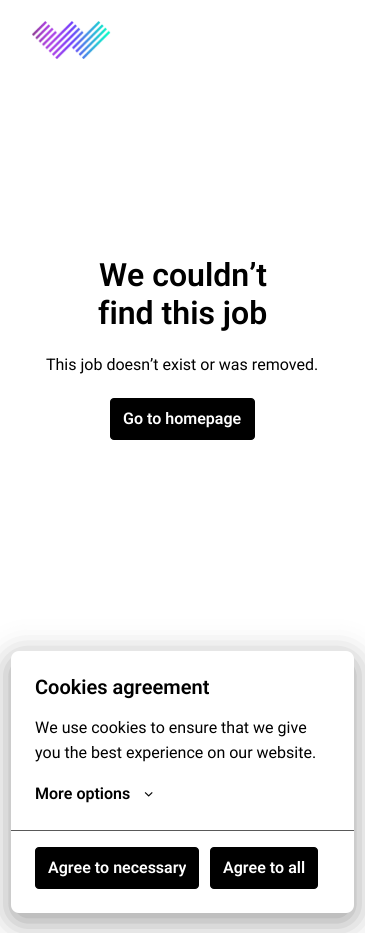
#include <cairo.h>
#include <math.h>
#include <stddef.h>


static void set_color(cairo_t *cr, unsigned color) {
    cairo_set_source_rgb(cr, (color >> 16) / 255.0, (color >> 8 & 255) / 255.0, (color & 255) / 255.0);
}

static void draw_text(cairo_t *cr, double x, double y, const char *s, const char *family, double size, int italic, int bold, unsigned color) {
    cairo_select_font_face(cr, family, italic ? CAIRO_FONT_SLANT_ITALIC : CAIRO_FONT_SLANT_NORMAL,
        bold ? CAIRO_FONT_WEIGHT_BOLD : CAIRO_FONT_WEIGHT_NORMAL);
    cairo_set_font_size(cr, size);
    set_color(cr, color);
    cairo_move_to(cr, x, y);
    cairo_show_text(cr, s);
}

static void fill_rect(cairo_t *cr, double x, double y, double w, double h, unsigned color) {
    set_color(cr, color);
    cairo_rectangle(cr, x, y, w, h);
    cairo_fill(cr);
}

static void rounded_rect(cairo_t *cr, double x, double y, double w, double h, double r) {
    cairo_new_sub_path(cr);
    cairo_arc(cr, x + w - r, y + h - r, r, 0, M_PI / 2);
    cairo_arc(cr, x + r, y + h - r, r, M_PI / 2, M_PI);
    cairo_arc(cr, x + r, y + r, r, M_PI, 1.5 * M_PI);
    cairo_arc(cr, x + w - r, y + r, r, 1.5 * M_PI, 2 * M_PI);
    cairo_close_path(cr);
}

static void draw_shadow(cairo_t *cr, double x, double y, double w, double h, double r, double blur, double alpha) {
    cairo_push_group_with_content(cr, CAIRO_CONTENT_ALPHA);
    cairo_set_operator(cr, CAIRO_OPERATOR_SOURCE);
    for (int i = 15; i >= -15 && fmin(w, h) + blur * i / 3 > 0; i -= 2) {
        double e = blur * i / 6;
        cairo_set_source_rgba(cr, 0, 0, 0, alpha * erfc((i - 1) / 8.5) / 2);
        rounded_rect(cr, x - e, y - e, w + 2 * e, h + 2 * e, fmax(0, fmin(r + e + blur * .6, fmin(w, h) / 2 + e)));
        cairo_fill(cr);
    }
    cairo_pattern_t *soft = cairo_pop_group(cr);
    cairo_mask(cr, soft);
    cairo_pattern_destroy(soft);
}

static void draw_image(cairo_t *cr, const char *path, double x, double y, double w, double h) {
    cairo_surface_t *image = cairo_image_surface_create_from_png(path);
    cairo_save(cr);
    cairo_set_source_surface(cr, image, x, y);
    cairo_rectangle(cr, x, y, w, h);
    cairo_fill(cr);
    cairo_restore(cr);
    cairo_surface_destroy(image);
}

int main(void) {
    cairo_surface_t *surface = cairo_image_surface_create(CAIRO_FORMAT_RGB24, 365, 933);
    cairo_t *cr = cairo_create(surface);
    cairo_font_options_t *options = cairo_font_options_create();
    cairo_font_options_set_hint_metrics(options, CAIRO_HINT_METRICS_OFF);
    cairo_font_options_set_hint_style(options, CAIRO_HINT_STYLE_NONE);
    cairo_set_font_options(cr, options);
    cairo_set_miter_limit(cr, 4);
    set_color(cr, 0xFFFFFF);
    cairo_paint(cr);
    draw_image(cr, "assets/img1.png", 32, 21, 79, 38);
    draw_text(cr, 99, 286, "We couldn’t", "Roboto SemiBold", 32, 0, 0, 0x000000);
    draw_text(cr, 98, 324, "find this job", "Roboto SemiBold", 32, 0, 0, 0x000000);
    draw_text(cr, 46, 370, "This job doesn’t exist or was removed.", "Roboto", 16, 0, 0, 0x000000);
    rounded_rect(cr, 110.5, 398.5, 144, 41, 3.5);
    cairo_fill_preserve(cr);
    cairo_set_line_width(cr, 1);
    cairo_stroke(cr);
    draw_text(cr, 123, 424, "Go to homepage", "Roboto SemiBold", 16, 0, 0, 0xFFFFFF);
    set_color(cr, 0x000000);
    draw_shadow(cr, 11, 659, 343, 262, 8, 16, 0.4);
    set_color(cr, 0xFFFFFF);
    rounded_rect(cr, 11, 651, 343, 262, 8);
    cairo_fill(cr);
    draw_text(cr, 35, 694, "Cookies agreement", "Roboto SemiBold", 20, 0, 0, 0x000000);
    draw_text(cr, 35, 733, "We use cookies to ensure that we give", "Roboto", 16, 0, 0, 0x000000);
    draw_text(cr, 35, 758, "you the best experience on our website.", "Roboto", 16, 0, 0, 0x000000);
    draw_text(cr, 35, 799, "More options", "Roboto SemiBold", 16, 0, 0, 0x000000);
    draw_image(cr, "assets/img2.png", 144, 792, 9, 5);
    fill_rect(cr, 11, 830, 343, 1, 0x595959);
    set_color(cr, 0x000000);
    rounded_rect(cr, 35.5, 847.5, 163, 41, 3.5);
    cairo_fill_preserve(cr);
    cairo_stroke(cr);
    draw_text(cr, 48, 873, "Agree to necessary", "Roboto SemiBold", 16, 0, 0, 0xFFFFFF);
    set_color(cr, 0x000000);
    rounded_rect(cr, 210.5, 847.5, 107, 41, 3.5);
    cairo_fill_preserve(cr);
    cairo_stroke(cr);
    draw_text(cr, 223, 873, "Agree to all", "Roboto SemiBold", 16, 0, 0, 0xFFFFFF);
    cairo_surface_write_to_png(surface, "output.png");
    cairo_font_options_destroy(options);
    cairo_destroy(cr);
    cairo_surface_destroy(surface);
    return 0;
}
